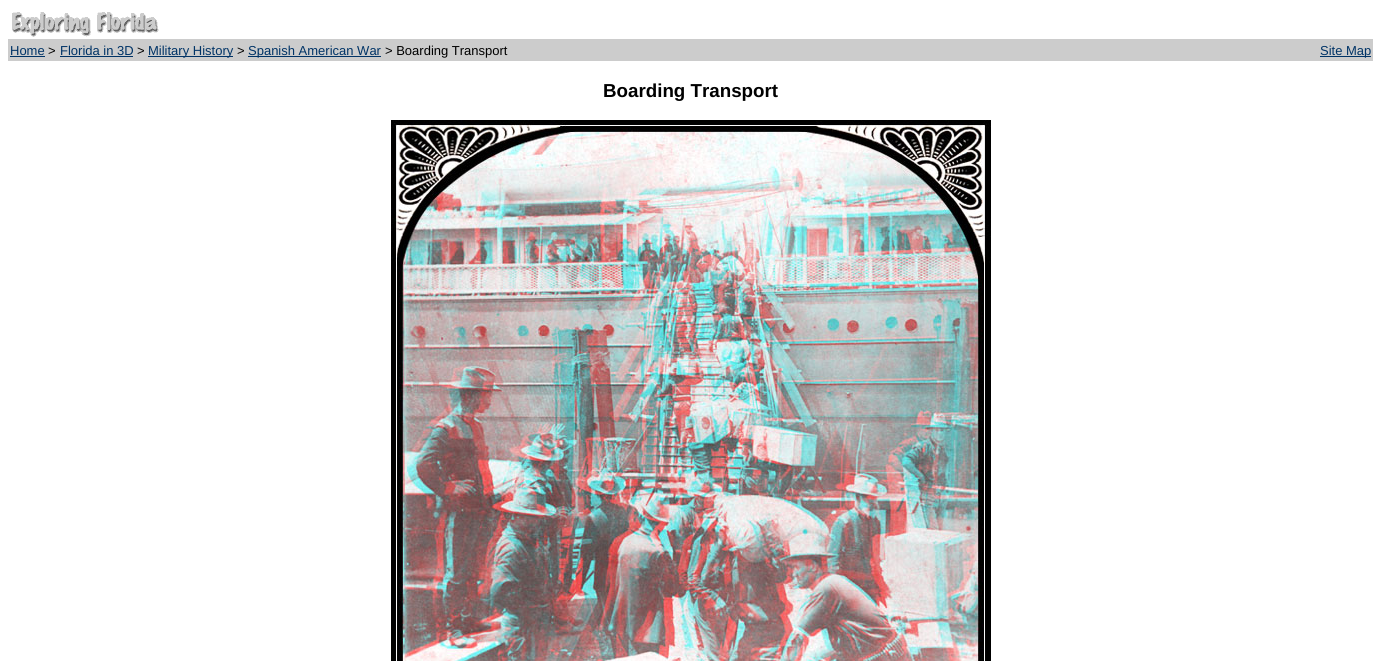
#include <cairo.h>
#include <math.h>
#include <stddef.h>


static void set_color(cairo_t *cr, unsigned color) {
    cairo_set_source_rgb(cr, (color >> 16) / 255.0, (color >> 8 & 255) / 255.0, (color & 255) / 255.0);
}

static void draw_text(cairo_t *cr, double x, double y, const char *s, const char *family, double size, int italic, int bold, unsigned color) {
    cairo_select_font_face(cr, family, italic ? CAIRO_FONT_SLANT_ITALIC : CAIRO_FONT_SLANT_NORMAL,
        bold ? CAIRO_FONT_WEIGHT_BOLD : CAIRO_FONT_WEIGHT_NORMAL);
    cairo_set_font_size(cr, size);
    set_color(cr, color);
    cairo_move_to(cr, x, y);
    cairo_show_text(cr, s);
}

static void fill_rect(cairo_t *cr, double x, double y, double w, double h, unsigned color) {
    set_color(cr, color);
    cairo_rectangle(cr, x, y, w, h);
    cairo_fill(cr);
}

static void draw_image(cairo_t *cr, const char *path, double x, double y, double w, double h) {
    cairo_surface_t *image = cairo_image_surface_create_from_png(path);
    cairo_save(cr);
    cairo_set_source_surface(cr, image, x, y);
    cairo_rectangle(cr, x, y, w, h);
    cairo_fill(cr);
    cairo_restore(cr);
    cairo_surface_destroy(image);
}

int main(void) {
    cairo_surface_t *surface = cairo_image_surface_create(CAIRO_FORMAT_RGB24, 1381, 661);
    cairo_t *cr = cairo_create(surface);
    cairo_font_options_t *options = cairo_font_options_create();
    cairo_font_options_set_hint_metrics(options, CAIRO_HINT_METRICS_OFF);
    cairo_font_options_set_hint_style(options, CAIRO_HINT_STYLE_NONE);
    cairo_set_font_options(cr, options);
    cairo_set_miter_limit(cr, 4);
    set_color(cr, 0xFFFFFF);
    cairo_paint(cr);
    draw_image(cr, "assets/img1.png", 12, 12, 147, 25);
    fill_rect(cr, 8, 39, 1365, 22, 0xCCCCCC);
    draw_text(cr, 10, 55, "Home", "Liberation Sans", 13, 0, 0, 0x003366);
    fill_rect(cr, 10, 56, 35, 1, 0x003366);
    draw_text(cr, 48, 55, ">", "Liberation Sans", 13, 0, 0, 0x000000);
    draw_text(cr, 60, 55, "Florida in 3D", "Liberation Sans", 13, 0, 0, 0x003366);
    fill_rect(cr, 60, 56, 73, 1, 0x003366);
    draw_text(cr, 137, 55, ">", "Liberation Sans", 13, 0, 0, 0x000000);
    fill_rect(cr, 148, 56, 85, 1, 0x003366);
    draw_text(cr, 148, 55, "Military History", "Liberation Sans", 13, 0, 0, 0x003366);
    draw_text(cr, 237, 55, ">", "Liberation Sans", 13, 0, 0, 0x000000);
    fill_rect(cr, 248, 56, 133, 1, 0x003366);
    draw_text(cr, 248, 55, "Spanish American War", "Liberation Sans", 13, 0, 0, 0x003366);
    draw_text(cr, 385, 55, "> Boarding Transport", "Liberation Sans", 13, 0, 0, 0x000000);
    fill_rect(cr, 1320, 56, 51, 1, 0x003366);
    draw_text(cr, 1320, 55, "Site Map", "Liberation Sans", 13, 0, 0, 0x003366);
    draw_text(cr, 603, 97, "Boarding Transport", "Liberation Sans", 18.75, 0, 1, 0x000000);
    draw_image(cr, "assets/img2.png", 391, 120, 600, 541);
    cairo_surface_write_to_png(surface, "output.png");
    cairo_font_options_destroy(options);
    cairo_destroy(cr);
    cairo_surface_destroy(surface);
    return 0;
}
